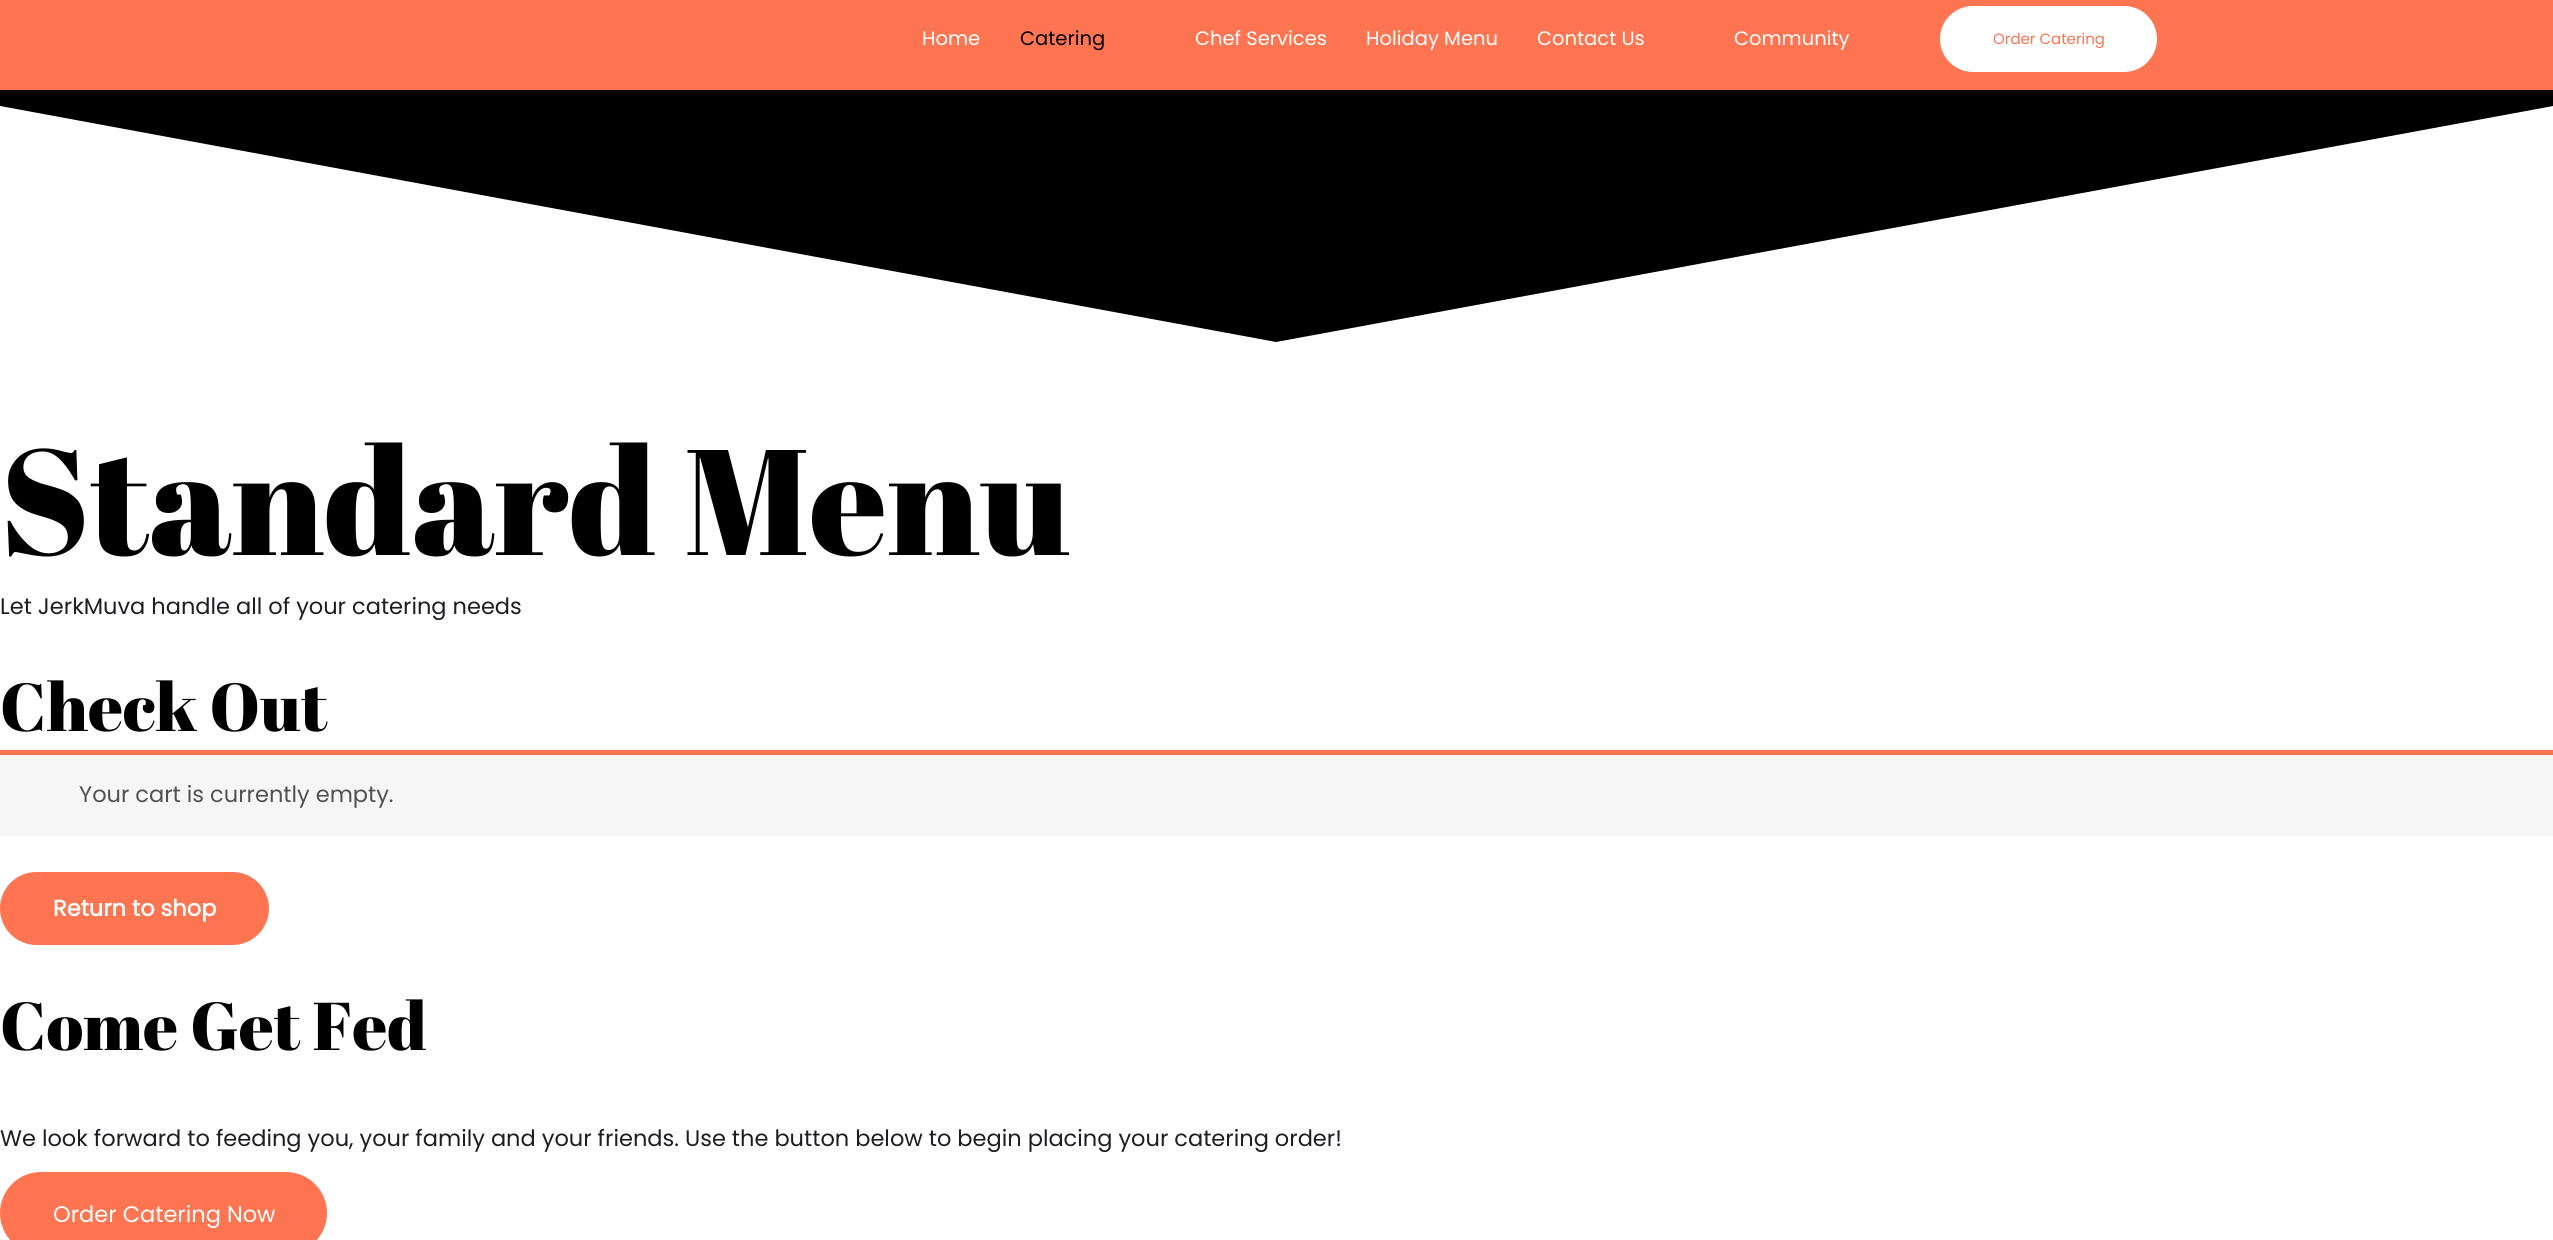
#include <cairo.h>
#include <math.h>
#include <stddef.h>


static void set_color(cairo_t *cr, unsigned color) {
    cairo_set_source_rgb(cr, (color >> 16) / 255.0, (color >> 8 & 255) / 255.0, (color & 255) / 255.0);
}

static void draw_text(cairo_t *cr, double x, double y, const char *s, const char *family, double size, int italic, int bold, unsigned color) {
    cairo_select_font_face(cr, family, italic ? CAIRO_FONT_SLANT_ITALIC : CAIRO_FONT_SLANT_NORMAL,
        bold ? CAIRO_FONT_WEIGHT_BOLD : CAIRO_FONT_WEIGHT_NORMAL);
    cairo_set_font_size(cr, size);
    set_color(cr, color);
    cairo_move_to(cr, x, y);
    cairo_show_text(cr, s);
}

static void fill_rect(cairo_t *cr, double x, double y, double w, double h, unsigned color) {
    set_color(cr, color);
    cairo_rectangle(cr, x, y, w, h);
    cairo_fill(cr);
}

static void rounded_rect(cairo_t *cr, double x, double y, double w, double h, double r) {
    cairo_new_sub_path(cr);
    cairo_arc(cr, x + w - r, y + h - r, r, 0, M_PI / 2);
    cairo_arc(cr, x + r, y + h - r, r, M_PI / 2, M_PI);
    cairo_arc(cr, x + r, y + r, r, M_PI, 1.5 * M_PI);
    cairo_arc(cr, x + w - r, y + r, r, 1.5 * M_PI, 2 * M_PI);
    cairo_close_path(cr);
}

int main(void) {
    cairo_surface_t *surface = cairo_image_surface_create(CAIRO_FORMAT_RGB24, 2553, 1240);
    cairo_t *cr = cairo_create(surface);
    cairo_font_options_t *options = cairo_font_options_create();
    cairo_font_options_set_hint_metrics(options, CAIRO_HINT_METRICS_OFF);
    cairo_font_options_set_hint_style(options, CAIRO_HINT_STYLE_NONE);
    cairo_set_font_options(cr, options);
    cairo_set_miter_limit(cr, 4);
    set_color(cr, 0xFFFFFF);
    cairo_paint(cr);
    fill_rect(cr, 0, 0, 2553, 90, 0xFF7451);
    draw_text(cr, 922, 45, "Home", "Poppins", 19.5, 0, 0, 0xFFFFFF);
    draw_text(cr, 1020, 45, "Catering", "Poppins", 19.5, 0, 0, 0x000000);
    draw_text(cr, 1195, 45, "Chef Services", "Poppins", 19.5, 0, 0, 0xFFFFFF);
    draw_text(cr, 1366, 45, "Holiday Menu", "Poppins", 19.5, 0, 0, 0xFFFFFF);
    draw_text(cr, 1537, 45, "Contact Us", "Poppins", 19.5, 0, 0, 0xFFFFFF);
    draw_text(cr, 1734, 45, "Community", "Poppins", 19.5, 0, 0, 0xFFFFFF);
    rounded_rect(cr, 1940, 6, 217, 66, 33);
    cairo_fill(cr);
    draw_text(cr, 1993, 44, "Order Catering", "Poppins", 15, 0, 0, 0xFF7451);
    set_color(cr, 0x000000);
    cairo_new_path(cr);
    cairo_move_to(cr, 1276, 342);
    cairo_line_to(cr, 0, 106);
    cairo_line_to(cr, 0, 90);
    cairo_line_to(cr, 2553, 90);
    cairo_line_to(cr, 2553, 106);
    cairo_close_path(cr);
    cairo_fill(cr);
    draw_text(cr, 0, 555, "Standard Menu", "Abril Fatface", 150, 0, 0, 0x000000);
    draw_text(cr, 0, 614, "Let JerkMuva handle all of your catering needs", "Poppins", 22.5, 0, 0, 0x1D1D23);
    draw_text(cr, 0, 731, "Check Out", "Abril Fatface", 67.5, 0, 0, 0x000000);
    fill_rect(cr, 0, 755, 2553, 81, 0xF7F6F7);
    fill_rect(cr, 0, 750, 2553, 5, 0xFF7451);
    draw_text(cr, 79, 802, "Your cart is currently empty.", "Poppins", 22.5, 0, 0, 0x515151);
    set_color(cr, 0xFF7451);
    rounded_rect(cr, 0, 872, 269, 73, 36.5);
    cairo_fill(cr);
    draw_text(cr, 53, 916, "Return to shop", "Poppins", 22.5, 0, 1, 0xFFFFFF);
    draw_text(cr, 0, 1050, "Come Get Fed", "Abril Fatface", 67.5, 0, 0, 0x000000);
    draw_text(cr, 0, 1146, "We look forward to feeding you, your family and your friends. Use the button below to begin placing your catering order!", "Poppins", 22.5, 0, 0, 0x1D1D23);
    set_color(cr, 0xFF7451);
    rounded_rect(cr, 0, 1172, 327, 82, 41);
    cairo_fill(cr);
    draw_text(cr, 53, 1222, "Order Catering Now", "Poppins", 22.5, 0, 0, 0xFFFFFF);
    cairo_surface_write_to_png(surface, "output.png");
    cairo_font_options_destroy(options);
    cairo_destroy(cr);
    cairo_surface_destroy(surface);
    return 0;
}
